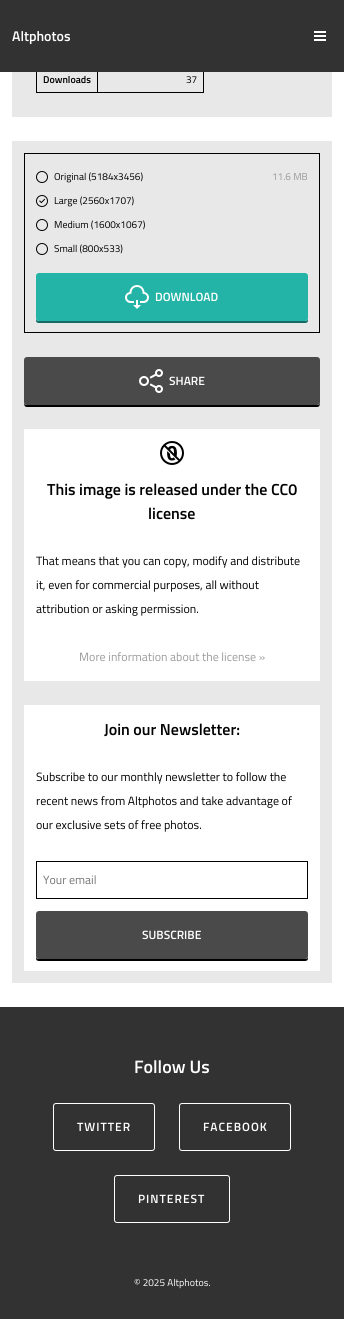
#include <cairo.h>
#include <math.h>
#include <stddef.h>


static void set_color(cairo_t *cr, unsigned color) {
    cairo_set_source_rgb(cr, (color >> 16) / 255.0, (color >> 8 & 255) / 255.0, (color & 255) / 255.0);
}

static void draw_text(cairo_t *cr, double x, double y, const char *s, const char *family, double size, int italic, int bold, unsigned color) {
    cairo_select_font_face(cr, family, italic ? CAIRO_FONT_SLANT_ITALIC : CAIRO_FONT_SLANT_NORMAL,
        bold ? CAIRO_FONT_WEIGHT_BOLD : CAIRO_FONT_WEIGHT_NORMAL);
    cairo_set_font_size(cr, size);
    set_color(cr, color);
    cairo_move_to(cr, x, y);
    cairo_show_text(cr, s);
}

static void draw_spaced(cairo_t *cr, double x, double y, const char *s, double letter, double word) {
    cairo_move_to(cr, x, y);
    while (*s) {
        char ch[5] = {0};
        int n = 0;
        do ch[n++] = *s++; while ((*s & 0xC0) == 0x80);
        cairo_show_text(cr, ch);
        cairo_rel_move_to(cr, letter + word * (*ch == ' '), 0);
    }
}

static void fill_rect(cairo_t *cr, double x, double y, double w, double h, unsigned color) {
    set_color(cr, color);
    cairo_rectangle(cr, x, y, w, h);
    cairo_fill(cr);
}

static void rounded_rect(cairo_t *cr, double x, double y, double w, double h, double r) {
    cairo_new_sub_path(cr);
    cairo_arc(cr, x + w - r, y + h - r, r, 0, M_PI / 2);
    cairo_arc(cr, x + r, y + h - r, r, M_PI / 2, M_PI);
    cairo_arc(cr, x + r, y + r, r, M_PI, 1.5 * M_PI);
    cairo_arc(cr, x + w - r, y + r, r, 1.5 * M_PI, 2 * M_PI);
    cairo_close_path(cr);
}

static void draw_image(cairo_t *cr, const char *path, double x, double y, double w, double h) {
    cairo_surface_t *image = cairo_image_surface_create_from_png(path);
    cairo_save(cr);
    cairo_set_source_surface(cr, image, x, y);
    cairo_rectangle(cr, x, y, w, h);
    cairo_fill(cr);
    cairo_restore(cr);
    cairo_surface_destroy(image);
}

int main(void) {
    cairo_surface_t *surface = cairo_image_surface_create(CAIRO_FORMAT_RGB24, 344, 1319);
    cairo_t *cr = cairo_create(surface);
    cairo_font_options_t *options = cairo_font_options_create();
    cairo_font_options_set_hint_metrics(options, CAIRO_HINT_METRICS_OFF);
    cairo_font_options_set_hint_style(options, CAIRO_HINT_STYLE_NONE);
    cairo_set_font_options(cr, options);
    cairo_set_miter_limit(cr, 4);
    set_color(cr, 0xFFFFFF);
    cairo_paint(cr);
    fill_rect(cr, 12, 72, 320, 45, 0xE8E8E8);
    fill_rect(cr, 203, 67, 1, 26, 0x000000);
    fill_rect(cr, 97, 92, 107, 1, 0x000000);
    fill_rect(cr, 97, 67, 1, 26, 0x000000);
    fill_rect(cr, 36, 92, 62, 1, 0x000000);
    fill_rect(cr, 36, 67, 1, 26, 0x000000);
    fill_rect(cr, 0, 0, 344, 72, 0x323232);
    draw_text(cr, 12, 41, "Altphotos", "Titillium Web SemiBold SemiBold", 14, 0, 0, 0xFFFFFF);
    draw_image(cr, "assets/img1.png", 314, 31, 12, 10);
    draw_text(cr, 43, 83, "Downloads", "Titillium Web SemiBold SemiBold", 10, 0, 0, 0x000000);
    draw_text(cr, 186, 83, "37", "Titillium Web", 10, 0, 0, 0x000000);
    fill_rect(cr, 12, 141, 320, 842, 0xE8E8E8);
    cairo_rectangle(cr, 24.5, 153.5, 295, 179);
    set_color(cr, 0x000000);
    cairo_set_line_width(cr, 1);
    cairo_stroke(cr);
    draw_image(cr, "assets/img2.png", 36, 171, 12, 12);
    draw_text(cr, 54, 180, "Original (5184x3456)", "Titillium Web", 10, 0, 0, 0x000000);
    draw_text(cr, 272, 180, "11.6 MB", "Titillium Web", 10, 0, 0, 0x9B9B9B);
    draw_image(cr, "assets/img3.png", 36, 195, 12, 12);
    draw_text(cr, 54, 204, "Large (2560x1707)", "Titillium Web", 10, 0, 0, 0x000000);
    draw_image(cr, "assets/img2.png", 36, 219, 12, 12);
    draw_text(cr, 54, 228, "Medium (1600x1067)", "Titillium Web", 10, 0, 0, 0x000000);
    draw_image(cr, "assets/img2.png", 36, 243, 12, 12);
    draw_text(cr, 54, 252, "Small (800x533)", "Titillium Web", 10, 0, 0, 0x000000);
    set_color(cr, 0x23B3A7);
    cairo_new_path(cr);
    cairo_move_to(cr, 36, 318);
    cairo_line_to(cr, 36, 320);
    cairo_curve_to(cr, 36, 322, 37, 323, 39, 323);
    cairo_line_to(cr, 305, 323);
    cairo_curve_to(cr, 307, 323, 308, 322, 308, 320);
    cairo_line_to(cr, 308, 318);
    cairo_curve_to(cr, 308, 320, 307, 321, 305, 321);
    cairo_line_to(cr, 39, 321);
    cairo_curve_to(cr, 37, 321, 36, 320, 36, 318);
    cairo_close_path(cr);
    cairo_fill(cr);
    cairo_set_source_rgba(cr, 0, 0, 0, 0.4);
    cairo_new_path(cr);
    cairo_move_to(cr, 36, 318);
    cairo_line_to(cr, 36, 320);
    cairo_curve_to(cr, 36, 322, 37, 323, 39, 323);
    cairo_line_to(cr, 305, 323);
    cairo_curve_to(cr, 307, 323, 308, 322, 308, 320);
    cairo_line_to(cr, 308, 318);
    cairo_curve_to(cr, 308, 320, 307, 321, 305, 321);
    cairo_line_to(cr, 39, 321);
    cairo_curve_to(cr, 37, 321, 36, 320, 36, 318);
    cairo_close_path(cr);
    cairo_fill(cr);
    set_color(cr, 0x23B3A7);
    rounded_rect(cr, 36, 273, 272, 48, 3);
    cairo_fill(cr);
    draw_image(cr, "assets/img4.png", 125, 285, 24, 24);
    draw_text(cr, 155, 301, "DOWNLOAD", "Titillium Web SemiBold SemiBold", 12, 0, 0, 0xFFFFFF);
    set_color(cr, 0x000000);
    cairo_new_path(cr);
    cairo_move_to(cr, 24, 402);
    cairo_curve_to(cr, 24, 404, 24, 407, 27, 407);
    cairo_line_to(cr, 317, 407);
    cairo_curve_to(cr, 320, 407, 320, 404, 320, 402);
    cairo_curve_to(cr, 320, 404, 319, 405, 317, 405);
    cairo_line_to(cr, 27, 405);
    cairo_curve_to(cr, 25, 405, 24, 404, 24, 402);
    cairo_close_path(cr);
    cairo_fill(cr);
    set_color(cr, 0x4A4A4A);
    rounded_rect(cr, 24, 357, 296, 48, 3);
    cairo_fill(cr);
    draw_image(cr, "assets/img5.png", 139, 369, 24, 24);
    draw_text(cr, 169, 385, "SHARE", "Titillium Web SemiBold SemiBold", 12, 0, 0, 0xFFFFFF);
    fill_rect(cr, 24, 429, 296, 252, 0xFFFFFF);
    draw_image(cr, "assets/img6.png", 160, 441, 24, 24);
    draw_text(cr, 47, 495, "This image is released under the CC0", "Titillium Web SemiBold SemiBold", 16, 0, 0, 0x000000);
    draw_text(cr, 148, 519, "license", "Titillium Web SemiBold SemiBold", 16, 0, 0, 0x000000);
    draw_text(cr, 36, 565, "That means that you can copy, modify and distribute", "Titillium Web", 12, 0, 0, 0x000000);
    draw_text(cr, 36, 589, "it, even for commercial purposes, all without", "Titillium Web", 12, 0, 0, 0x000000);
    draw_text(cr, 36, 613, "attribution or asking permission.", "Titillium Web", 12, 0, 0, 0x000000);
    draw_text(cr, 79, 661, "More information about the license »", "Titillium Web", 12, 0, 0, 0x9B9B9B);
    fill_rect(cr, 24, 705, 296, 266, 0xFFFFFF);
    draw_text(cr, 104, 735, "Join our Newsletter:", "Titillium Web SemiBold SemiBold", 16, 0, 0, 0x000000);
    draw_text(cr, 36, 781, "Subscribe to our monthly newsletter to follow the", "Titillium Web", 12, 0, 0, 0x000000);
    draw_text(cr, 36, 805, "recent news from Altphotos and take advantage of", "Titillium Web", 12, 0, 0, 0x000000);
    draw_text(cr, 36, 829, "our exclusive sets of free photos.", "Titillium Web", 12, 0, 0, 0x000000);
    cairo_rectangle(cr, 36.5, 861.5, 271, 37);
    cairo_stroke(cr);
    draw_text(cr, 43, 884, "Your email", "Titillium Web", 12, 0, 0, 0x757575);
    set_color(cr, 0x000000);
    cairo_new_path(cr);
    cairo_move_to(cr, 36, 956);
    cairo_line_to(cr, 36, 958);
    cairo_curve_to(cr, 36, 960, 37, 961, 39, 961);
    cairo_line_to(cr, 305, 961);
    cairo_curve_to(cr, 307, 961, 308, 960, 308, 958);
    cairo_line_to(cr, 308, 956);
    cairo_curve_to(cr, 308, 958, 307, 959, 305, 959);
    cairo_line_to(cr, 39, 959);
    cairo_curve_to(cr, 37, 959, 36, 958, 36, 956);
    cairo_close_path(cr);
    cairo_fill(cr);
    set_color(cr, 0x4A4A4A);
    rounded_rect(cr, 36, 911, 272, 48, 3);
    cairo_fill(cr);
    draw_text(cr, 142, 939, "SUBSCRIBE", "Titillium Web SemiBold SemiBold", 12, 0, 0, 0xFFFFFF);
    fill_rect(cr, 0, 1007, 344, 312, 0x323232);
    draw_text(cr, 134, 1073, "Follow Us", "Titillium Web SemiBold SemiBold", 18, 0, 0, 0xFFFFFF);
    rounded_rect(cr, 53.5, 1103.5, 101, 47, 2.5);
    cairo_stroke(cr);
    cairo_set_font_size(cr, 12);
    draw_spaced(cr, 77, 1131, "TWITTER", 1, 0);
    rounded_rect(cr, 179.5, 1103.5, 111, 47, 2.5);
    cairo_stroke(cr);
    draw_spaced(cr, 203, 1131, "FACEBOOK", 1, 0);
    rounded_rect(cr, 114.5, 1175.5, 115, 47, 2.5);
    cairo_stroke(cr);
    draw_spaced(cr, 138, 1203, "PINTEREST", 1, 0);
    draw_text(cr, 134, 1286, "© 2025 Altphotos.", "Titillium Web", 10, 0, 0, 0xFFFFFF);
    cairo_surface_write_to_png(surface, "output.png");
    cairo_font_options_destroy(options);
    cairo_destroy(cr);
    cairo_surface_destroy(surface);
    return 0;
}
